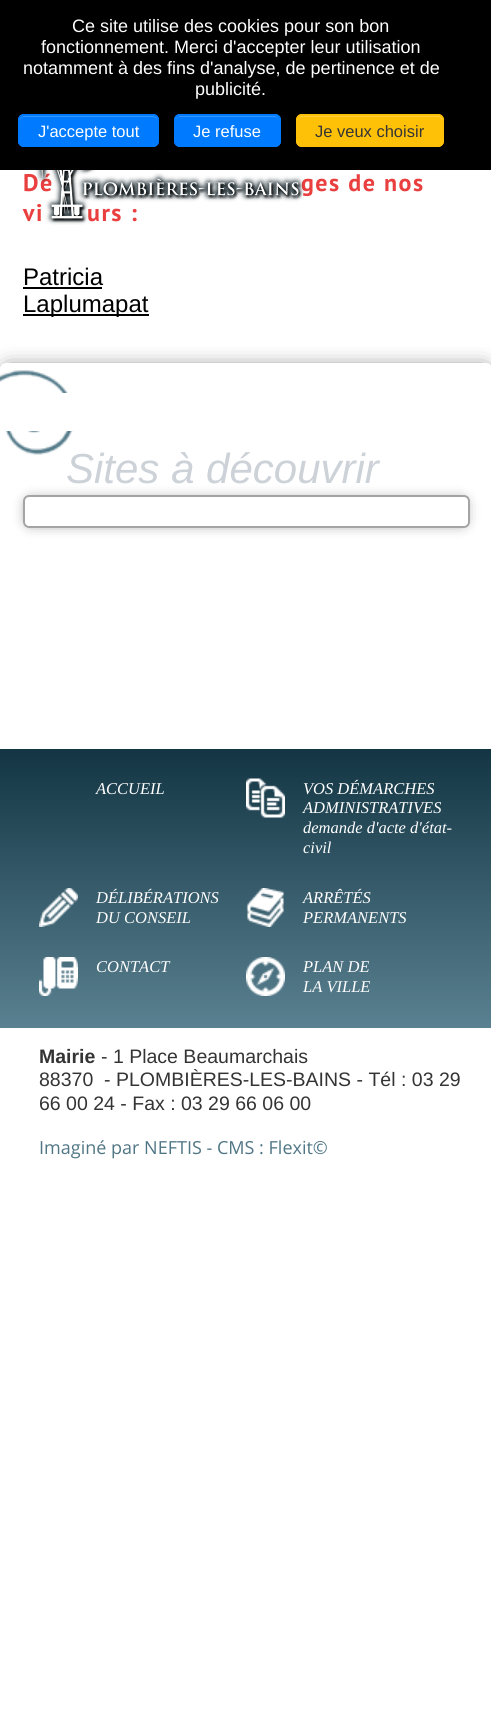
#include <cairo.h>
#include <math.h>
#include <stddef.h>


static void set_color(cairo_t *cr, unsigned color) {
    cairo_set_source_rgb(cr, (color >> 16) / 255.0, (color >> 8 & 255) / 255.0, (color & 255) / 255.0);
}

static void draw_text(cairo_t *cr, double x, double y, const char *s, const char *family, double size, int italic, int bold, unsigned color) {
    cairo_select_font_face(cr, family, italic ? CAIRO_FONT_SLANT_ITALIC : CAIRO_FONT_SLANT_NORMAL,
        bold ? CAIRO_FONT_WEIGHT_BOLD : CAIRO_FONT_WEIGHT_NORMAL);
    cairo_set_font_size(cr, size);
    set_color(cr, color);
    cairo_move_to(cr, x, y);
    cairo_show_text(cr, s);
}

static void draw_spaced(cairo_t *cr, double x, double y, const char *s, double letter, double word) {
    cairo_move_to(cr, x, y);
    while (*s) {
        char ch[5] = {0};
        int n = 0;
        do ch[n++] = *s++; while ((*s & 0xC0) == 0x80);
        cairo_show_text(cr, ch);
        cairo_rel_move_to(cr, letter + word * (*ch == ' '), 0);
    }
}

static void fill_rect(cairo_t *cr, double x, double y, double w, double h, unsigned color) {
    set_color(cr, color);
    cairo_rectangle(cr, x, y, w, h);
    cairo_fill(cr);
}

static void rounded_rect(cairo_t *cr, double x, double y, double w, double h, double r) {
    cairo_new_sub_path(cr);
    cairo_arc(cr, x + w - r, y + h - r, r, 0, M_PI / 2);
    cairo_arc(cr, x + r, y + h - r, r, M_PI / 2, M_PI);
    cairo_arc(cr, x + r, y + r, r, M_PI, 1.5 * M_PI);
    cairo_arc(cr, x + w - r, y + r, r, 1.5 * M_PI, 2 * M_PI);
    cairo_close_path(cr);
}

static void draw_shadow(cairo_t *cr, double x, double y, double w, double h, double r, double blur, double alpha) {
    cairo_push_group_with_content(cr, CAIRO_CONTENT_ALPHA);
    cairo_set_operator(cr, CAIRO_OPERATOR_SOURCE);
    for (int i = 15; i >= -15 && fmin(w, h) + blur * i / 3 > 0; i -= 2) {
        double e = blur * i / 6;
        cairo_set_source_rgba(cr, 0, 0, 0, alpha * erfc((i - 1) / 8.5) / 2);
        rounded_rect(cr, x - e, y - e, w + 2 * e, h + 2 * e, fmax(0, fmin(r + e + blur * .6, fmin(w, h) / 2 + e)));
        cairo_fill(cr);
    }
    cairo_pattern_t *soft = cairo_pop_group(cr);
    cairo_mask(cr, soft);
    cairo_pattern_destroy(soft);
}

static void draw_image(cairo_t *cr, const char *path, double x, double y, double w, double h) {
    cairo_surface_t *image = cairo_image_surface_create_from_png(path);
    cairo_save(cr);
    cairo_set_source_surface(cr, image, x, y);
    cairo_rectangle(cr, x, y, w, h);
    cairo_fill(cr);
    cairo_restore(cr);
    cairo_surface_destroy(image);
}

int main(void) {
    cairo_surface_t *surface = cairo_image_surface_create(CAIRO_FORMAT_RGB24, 491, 1730);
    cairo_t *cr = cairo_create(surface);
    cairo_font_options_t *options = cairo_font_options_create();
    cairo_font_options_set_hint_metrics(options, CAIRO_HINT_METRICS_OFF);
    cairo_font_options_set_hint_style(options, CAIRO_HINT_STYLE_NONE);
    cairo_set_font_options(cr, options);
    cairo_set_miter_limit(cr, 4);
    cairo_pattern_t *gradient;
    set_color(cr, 0xFFFFFF);
    cairo_paint(cr);
    fill_rect(cr, 0, 0, 491, 170, 0x000000);
    draw_text(cr, 72, 32, "Ce site utilise des cookies pour son bon", "Liberation Sans", 18, 0, 0, 0xFFFFFF);
    draw_text(cr, 41, 53, "fonctionnement. Merci d'accepter leur utilisation", "Liberation Sans", 18, 0, 0, 0xFFFFFF);
    draw_text(cr, 23, 74, "notamment à des fins d'analyse, de pertinence et de", "Liberation Sans", 18, 0, 0, 0xFFFFFF);
    draw_text(cr, 195, 95, "publicité.", "Liberation Sans", 18, 0, 0, 0xFFFFFF);
    set_color(cr, 0x007BFF);
    rounded_rect(cr, 18, 114, 141, 33, 6);
    cairo_fill(cr);
    set_color(cr, 0x3395FF);
    cairo_new_path(cr);
    cairo_move_to(cr, 24, 117);
    cairo_line_to(cr, 153, 117);
    cairo_curve_to(cr, 155, 117, 158, 119, 158, 122);
    cairo_line_to(cr, 158, 121);
    cairo_curve_to(cr, 158, 118, 156, 116, 153, 116);
    cairo_line_to(cr, 25, 116);
    cairo_curve_to(cr, 22, 116, 20, 118, 20, 121);
    cairo_line_to(cr, 20, 122);
    cairo_curve_to(cr, 20, 119, 22, 117, 24, 117);
    cairo_close_path(cr);
    cairo_fill(cr);
    rounded_rect(cr, 19, 115, 139, 31, 5);
    set_color(cr, 0x007BFF);
    cairo_stroke(cr);
    draw_text(cr, 38, 137, "J'accepte tout", "Liberation Sans", 16.5, 0, 0, 0xFFFFFF);
    set_color(cr, 0x007BFF);
    rounded_rect(cr, 174, 114, 107, 33, 6);
    cairo_fill(cr);
    set_color(cr, 0x3395FF);
    cairo_new_path(cr);
    cairo_move_to(cr, 180, 117);
    cairo_line_to(cr, 274, 117);
    cairo_curve_to(cr, 277, 117, 279, 119, 279, 122);
    cairo_curve_to(cr, 279, 112, 264, 116, 258, 116);
    cairo_line_to(cr, 196, 116);
    cairo_curve_to(cr, 191, 116, 176, 112, 176, 122);
    cairo_curve_to(cr, 176, 119, 178, 117, 180, 117);
    cairo_close_path(cr);
    cairo_fill(cr);
    rounded_rect(cr, 175, 115, 105, 31, 5);
    set_color(cr, 0x007BFF);
    cairo_stroke(cr);
    draw_text(cr, 193, 137, "Je refuse", "Liberation Sans", 16.5, 0, 0, 0xFFFFFF);
    set_color(cr, 0xFFC107);
    rounded_rect(cr, 296, 114, 148, 33, 6);
    cairo_fill(cr);
    set_color(cr, 0xFFCD39);
    cairo_new_path(cr);
    cairo_move_to(cr, 302, 117);
    cairo_line_to(cr, 438, 117);
    cairo_curve_to(cr, 440, 117, 442, 119, 442, 122);
    cairo_line_to(cr, 442, 142);
    cairo_line_to(cr, 441, 145);
    cairo_curve_to(cr, 442, 144, 443, 142, 443, 141);
    cairo_line_to(cr, 443, 121);
    cairo_curve_to(cr, 443, 118, 441, 116, 438, 116);
    cairo_line_to(cr, 302, 116);
    cairo_curve_to(cr, 299, 116, 297, 118, 297, 121);
    cairo_line_to(cr, 297, 122);
    cairo_curve_to(cr, 297, 119, 299, 117, 302, 117);
    cairo_close_path(cr);
    cairo_fill(cr);
    rounded_rect(cr, 297, 115, 146, 31, 5);
    set_color(cr, 0xFFC107);
    cairo_stroke(cr);
    draw_text(cr, 315, 137, "Je veux choisir", "Liberation Sans", 16.5, 0, 0, 0x343434);
    cairo_select_font_face(cr, "PT Sans", CAIRO_FONT_SLANT_NORMAL, CAIRO_FONT_WEIGHT_BOLD);
    cairo_set_font_size(cr, 24);
    set_color(cr, 0xEA3F3F);
    draw_spaced(cr, 23, 191, "Dé", 1.5, 0);
    draw_spaced(cr, 301, 191, "ges de nos", 1.5, 0);
    draw_spaced(cr, 23, 221, "vi", 1.5, 0);
    draw_spaced(cr, 87, 221, "urs :", 1.5, 0);
    draw_image(cr, "assets/img1.png", 35, 170, 269, 55);
    draw_text(cr, 23, 285, "Patricia", "Liberation Sans", 24, 0, 0, 0x000000);
    fill_rect(cr, 23, 287, 79, 2, 0x000000);
    fill_rect(cr, 23, 314, 126, 2, 0x000000);
    draw_text(cr, 23, 312, "Laplumapat", "Liberation Sans", 24, 0, 0, 0x000000);
    set_color(cr, 0x000000);
    draw_shadow(cr, 8, 371, 477, 30, 0, 11, 0.75);
    set_color(cr, 0xFFFFFF);
    cairo_new_path(cr);
    cairo_move_to(cr, 6, 363);
    cairo_line_to(cr, 486, 363);
    cairo_curve_to(cr, 489.5, 363, 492, 365.5, 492, 369);
    cairo_line_to(cr, 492, 408);
    cairo_line_to(cr, 0, 408);
    cairo_line_to(cr, 0, 369);
    cairo_curve_to(cr, 0, 365.5, 2.5, 363, 6, 363);
    cairo_close_path(cr);
    cairo_fill(cr);
    cairo_save(cr);
    cairo_set_fill_rule(cr, CAIRO_FILL_RULE_EVEN_ODD);
    cairo_new_path(cr);
    cairo_move_to(cr, 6, 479);
    cairo_line_to(cr, 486, 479);
    cairo_line_to(cr, 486, 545);
    cairo_line_to(cr, 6, 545);
    cairo_close_path(cr);
    cairo_move_to(cr, 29, 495);
    cairo_line_to(cr, 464, 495);
    cairo_curve_to(cr, 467.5, 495, 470, 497.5, 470, 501);
    cairo_line_to(cr, 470, 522);
    cairo_curve_to(cr, 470, 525.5, 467.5, 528, 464, 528);
    cairo_line_to(cr, 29, 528);
    cairo_curve_to(cr, 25.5, 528, 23, 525.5, 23, 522);
    cairo_line_to(cr, 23, 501);
    cairo_curve_to(cr, 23, 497.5, 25.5, 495, 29, 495);
    cairo_close_path(cr);
    cairo_clip(cr);
    set_color(cr, 0x000000);
    draw_shadow(cr, 30, 503, 432, 18, 0, 7.5, 0.75);
    cairo_restore(cr);
    draw_text(cr, 66, 483, "Sites à découvrir", "Liberation Sans", 42, 1, 0, 0xCCD2D8);
    draw_image(cr, "assets/img2.png", 0, 370, 75, 85);
    fill_rect(cr, 4, 393, 487, 38, 0xFFFFFF);
    rounded_rect(cr, 24, 496, 445, 31, 5);
    set_color(cr, 0xA4A4A4);
    cairo_stroke(cr);
    gradient = cairo_pattern_create_linear(246, 749, 246, 1028);
    cairo_pattern_add_color_stop_rgba(gradient, 0.01, 0.078, 0.212, 0.267, 1);
    cairo_pattern_add_color_stop_rgba(gradient, 1, 0.353, 0.506, 0.569, 1);
    cairo_set_source(cr, gradient);
    cairo_pattern_destroy(gradient);
    cairo_rectangle(cr, 0, 749, 491, 279);
    cairo_fill(cr);
    draw_text(cr, 96, 794, "ACCUEIL", "Liberation Serif", 16.5, 1, 0, 0xFFFFFF);
    draw_image(cr, "assets/img3.png", 246, 778, 39, 40);
    draw_text(cr, 303, 794, "VOS DÉMARCHES", "Liberation Serif", 16.5, 1, 0, 0xFFFFFF);
    draw_text(cr, 303, 813, "ADMINISTRATIVES", "Liberation Serif", 16.5, 1, 0, 0xFFFFFF);
    draw_text(cr, 303, 833, "demande d'acte d'état-", "Liberation Serif", 16.5, 1, 0, 0xFFFFFF);
    draw_text(cr, 303, 853, "civil", "Liberation Serif", 16.5, 1, 0, 0xFFFFFF);
    draw_image(cr, "assets/img4.png", 39, 888, 39, 39);
    draw_text(cr, 96, 903, "DÉLIBÉRATIONS", "Liberation Serif", 16.5, 1, 0, 0xFFFFFF);
    draw_text(cr, 96, 923, "DU CONSEIL", "Liberation Serif", 16.5, 1, 0, 0xFFFFFF);
    draw_image(cr, "assets/img5.png", 246, 888, 38, 39);
    draw_text(cr, 303, 903, "ARRÊTÉS", "Liberation Serif", 16.5, 1, 0, 0xFFFFFF);
    draw_text(cr, 303, 923, "PERMANENTS", "Liberation Serif", 16.5, 1, 0, 0xFFFFFF);
    draw_image(cr, "assets/img6.png", 39, 957, 39, 39);
    draw_text(cr, 96, 972, "CONTACT", "Liberation Serif", 16.5, 1, 0, 0xFFFFFF);
    draw_image(cr, "assets/img7.png", 246, 957, 39, 39);
    draw_text(cr, 303, 972, "PLAN DE", "Liberation Serif", 16.5, 1, 0, 0xFFFFFF);
    draw_text(cr, 303, 992, "LA VILLE", "Liberation Serif", 16.5, 1, 0, 0xFFFFFF);
    draw_text(cr, 39, 1063, "Mairie", "Liberation Sans", 19.5, 0, 1, 0x343434);
    draw_text(cr, 101, 1063, "- 1 Place Beaumarchais", "Liberation Sans", 19.5, 0, 0, 0x343434);
    draw_text(cr, 39, 1086, "88370  - PLOMBIÈRES-LES-BAINS - Tél : 03 29", "Liberation Sans", 19.5, 0, 0, 0x343434);
    draw_text(cr, 39, 1110, "66 00 24 - Fax : 03 29 66 06 00", "Liberation Sans", 19.5, 0, 0, 0x343434);
    draw_text(cr, 39, 1154, "Imaginé par NEFTIS - CMS : Flexit©", "Open Sans", 18, 0, 0, 0x507685);
    cairo_surface_write_to_png(surface, "output.png");
    cairo_font_options_destroy(options);
    cairo_destroy(cr);
    cairo_surface_destroy(surface);
    return 0;
}
